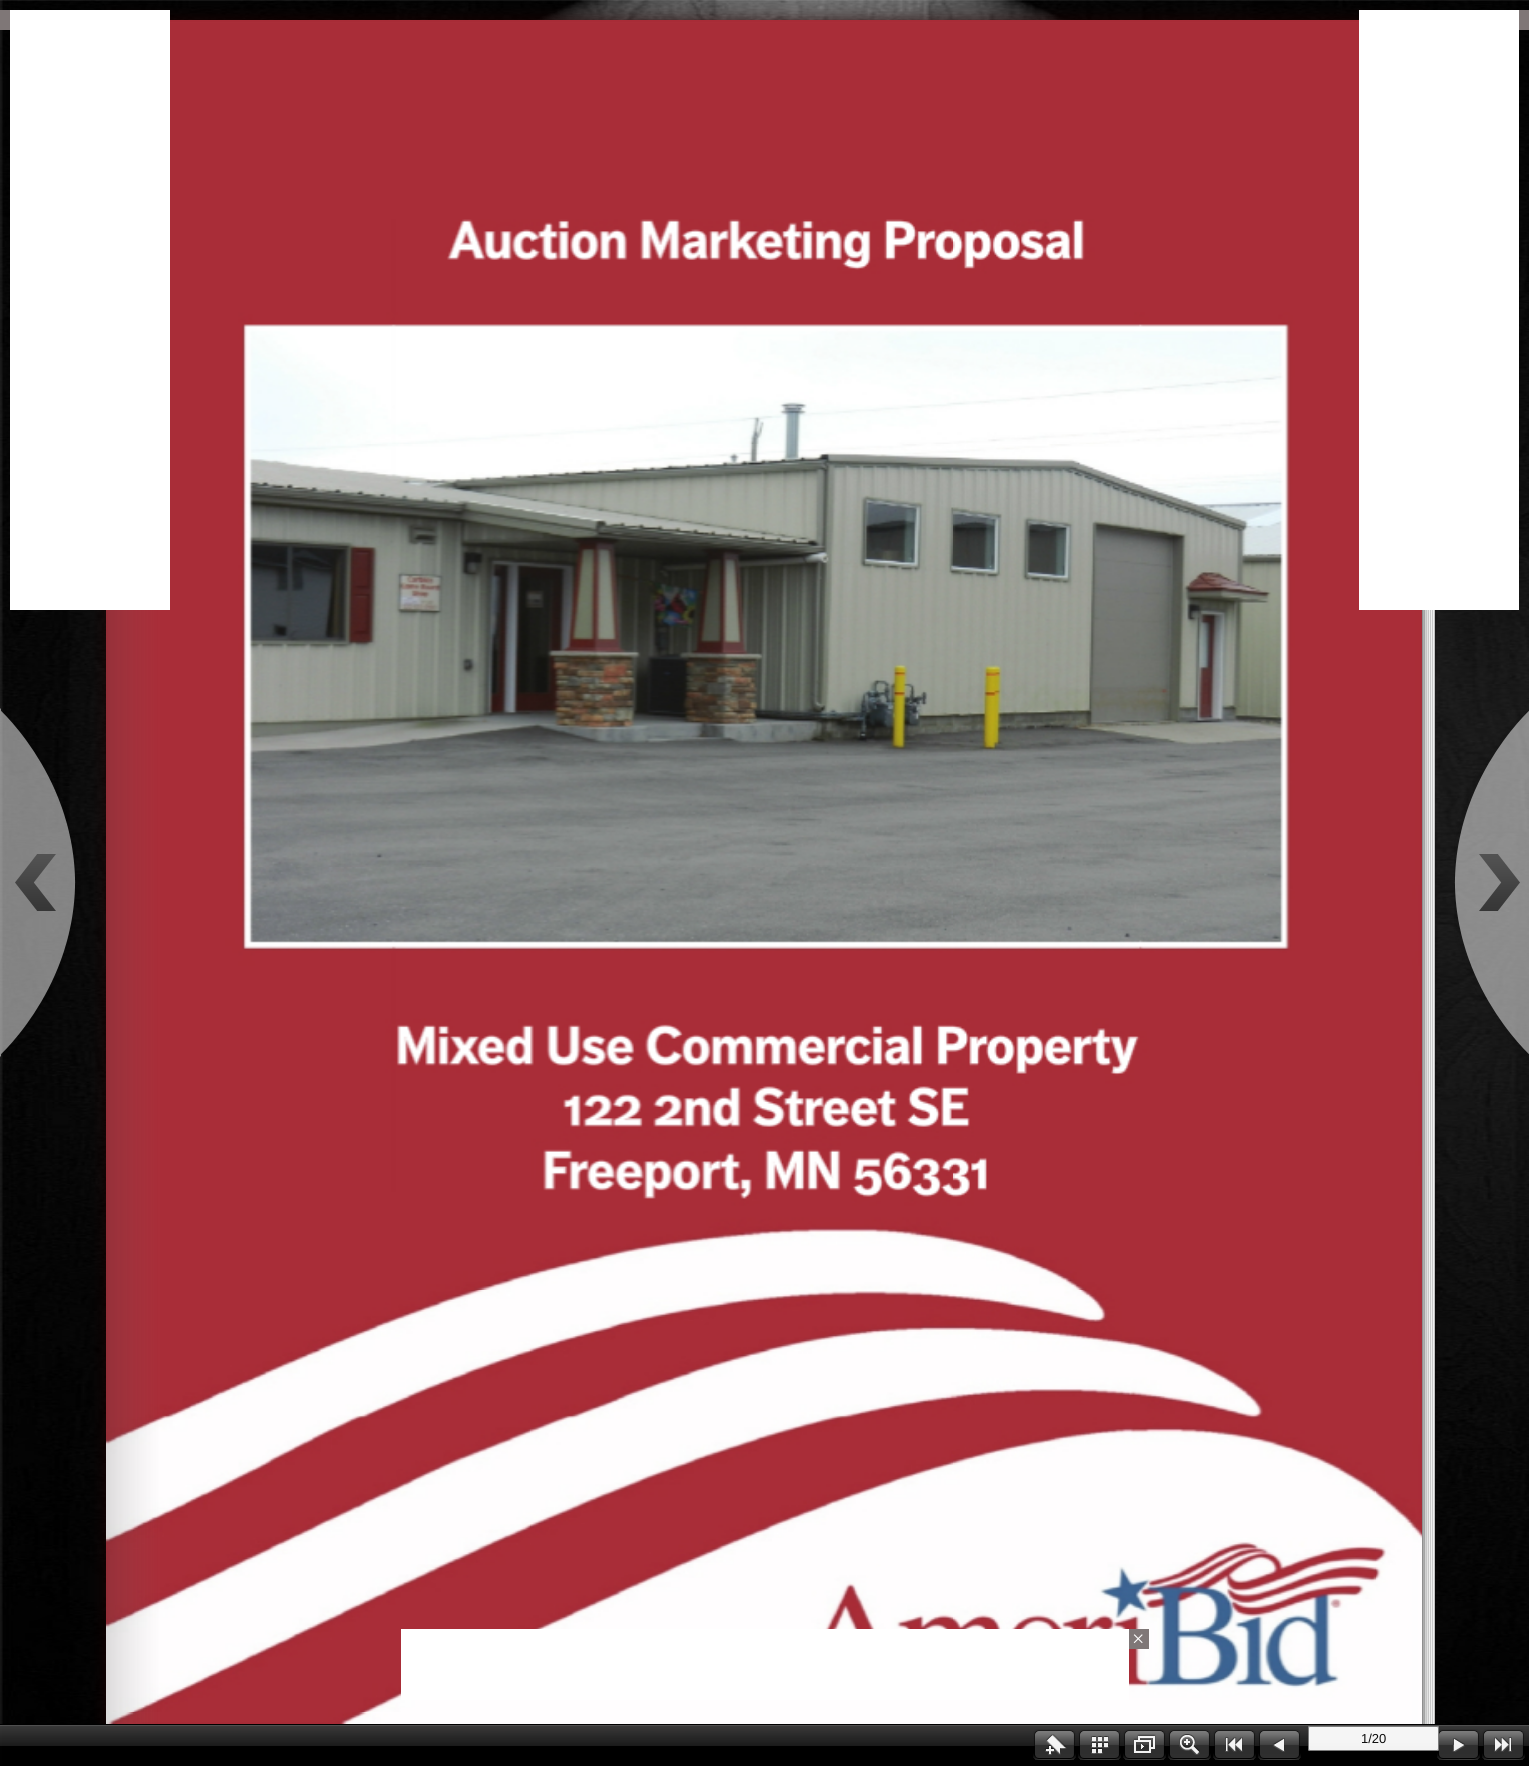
#include <cairo.h>
#include <math.h>
#include <stddef.h>


static void set_color(cairo_t *cr, unsigned color) {
    cairo_set_source_rgb(cr, (color >> 16) / 255.0, (color >> 8 & 255) / 255.0, (color & 255) / 255.0);
}

static void draw_text(cairo_t *cr, double x, double y, const char *s, const char *family, double size, int italic, int bold, unsigned color) {
    cairo_select_font_face(cr, family, italic ? CAIRO_FONT_SLANT_ITALIC : CAIRO_FONT_SLANT_NORMAL,
        bold ? CAIRO_FONT_WEIGHT_BOLD : CAIRO_FONT_WEIGHT_NORMAL);
    cairo_set_font_size(cr, size);
    set_color(cr, color);
    cairo_move_to(cr, x, y);
    cairo_show_text(cr, s);
}

static void fill_rect(cairo_t *cr, double x, double y, double w, double h, unsigned color) {
    set_color(cr, color);
    cairo_rectangle(cr, x, y, w, h);
    cairo_fill(cr);
}

static void rounded_rect(cairo_t *cr, double x, double y, double w, double h, double r) {
    cairo_new_sub_path(cr);
    cairo_arc(cr, x + w - r, y + h - r, r, 0, M_PI / 2);
    cairo_arc(cr, x + r, y + h - r, r, M_PI / 2, M_PI);
    cairo_arc(cr, x + r, y + r, r, M_PI, 1.5 * M_PI);
    cairo_arc(cr, x + w - r, y + r, r, 1.5 * M_PI, 2 * M_PI);
    cairo_close_path(cr);
}

static void draw_shadow(cairo_t *cr, double x, double y, double w, double h, double r, double blur, double alpha) {
    cairo_push_group_with_content(cr, CAIRO_CONTENT_ALPHA);
    cairo_set_operator(cr, CAIRO_OPERATOR_SOURCE);
    for (int i = 15; i >= -15 && fmin(w, h) + blur * i / 3 > 0; i -= 2) {
        double e = blur * i / 6;
        cairo_set_source_rgba(cr, 0, 0, 0, alpha * erfc((i - 1) / 8.5) / 2);
        rounded_rect(cr, x - e, y - e, w + 2 * e, h + 2 * e, fmax(0, fmin(r + e + blur * .6, fmin(w, h) / 2 + e)));
        cairo_fill(cr);
    }
    cairo_pattern_t *soft = cairo_pop_group(cr);
    cairo_mask(cr, soft);
    cairo_pattern_destroy(soft);
}

static void draw_image(cairo_t *cr, const char *path, double x, double y, double w, double h) {
    cairo_surface_t *image = cairo_image_surface_create_from_png(path);
    cairo_save(cr);
    cairo_set_source_surface(cr, image, x, y);
    cairo_rectangle(cr, x, y, w, h);
    cairo_fill(cr);
    cairo_restore(cr);
    cairo_surface_destroy(image);
}

int main(void) {
    cairo_surface_t *surface = cairo_image_surface_create(CAIRO_FORMAT_RGB24, 1529, 1766);
    cairo_t *cr = cairo_create(surface);
    cairo_font_options_t *options = cairo_font_options_create();
    cairo_font_options_set_hint_metrics(options, CAIRO_HINT_METRICS_OFF);
    cairo_font_options_set_hint_style(options, CAIRO_HINT_STYLE_NONE);
    cairo_set_font_options(cr, options);
    cairo_set_miter_limit(cr, 4);
    set_color(cr, 0xFFFFFF);
    cairo_paint(cr);
    draw_image(cr, "assets/img1.png", 0, 0, 1529, 1766);
    set_color(cr, 0x280000);
    draw_shadow(cr, 106, 20, 1317, 1704, 0, 7.5, 0.7);
    cairo_save(cr);
    cairo_rectangle(cr, 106, 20, 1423, 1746);
    cairo_clip(cr);
    draw_shadow(cr, 106, 20, 1317, 1704, 0, 5, 0.5);
    draw_shadow(cr, 106, 20, 1317, 1704, 0, 5, 0.5);
    draw_shadow(cr, 106, 20, 1317, 1704, 0, 5, 0.5);
    cairo_restore(cr);
    draw_image(cr, "assets/img3.png", 106, 20, 1316, 1704);
    fill_rect(cr, 10, 10, 160, 600, 0xFFFFFF);
    fill_rect(cr, 0, 10, 10, 20, 0x7F7777);
    fill_rect(cr, 1359, 10, 160, 600, 0xFFFFFF);
    fill_rect(cr, 1519, 10, 10, 20, 0x7F7777);
    fill_rect(cr, 401, 1629, 728, 71, 0xFFFFFF);
    fill_rect(cr, 1129, 1629, 20, 20, 0x7F7777);
    draw_text(cr, 1132, 1646, "×", "Liberation Serif", 22, 0, 0, 0xFFFFFF);
    draw_image(cr, "assets/img2.png", 0, 708, 76, 349);
    draw_image(cr, "assets/img4.png", 1422, 610, 13, 1114);
    draw_image(cr, "assets/img5.png", 1454, 711, 75, 343);
    draw_image(cr, "assets/img6.png", 0, 1724, 1529, 42);
    draw_image(cr, "assets/img7.png", 1033, 1729, 43, 31);
    draw_image(cr, "assets/img8.png", 1078, 1729, 43, 31);
    draw_image(cr, "assets/img9.png", 1123, 1729, 43, 31);
    draw_image(cr, "assets/img10.png", 1168, 1729, 43, 31);
    draw_image(cr, "assets/img11.png", 1213, 1729, 43, 31);
    draw_image(cr, "assets/img12.png", 1258, 1729, 43, 31);
    draw_image(cr, "assets/img13.png", 1437, 1729, 43, 31);
    cairo_set_source_rgba(cr, 1, 1, 1, 0.95);
    rounded_rect(cr, 1308, 1726, 131, 25, 2);
    cairo_fill(cr);
    rounded_rect(cr, 1308.5, 1726.5, 130, 24, 1.5);
    cairo_set_source_rgba(cr, 0.463, 0.463, 0.463, 0.95);
    cairo_set_line_width(cr, 1);
    cairo_stroke(cr);
    draw_text(cr, 1361, 1743, "1/20", "Liberation Sans", 13, 0, 0, 0x0C0C0C);
    draw_image(cr, "assets/img14.png", 1482, 1729, 43, 31);
    cairo_surface_write_to_png(surface, "output.png");
    cairo_font_options_destroy(options);
    cairo_destroy(cr);
    cairo_surface_destroy(surface);
    return 0;
}
